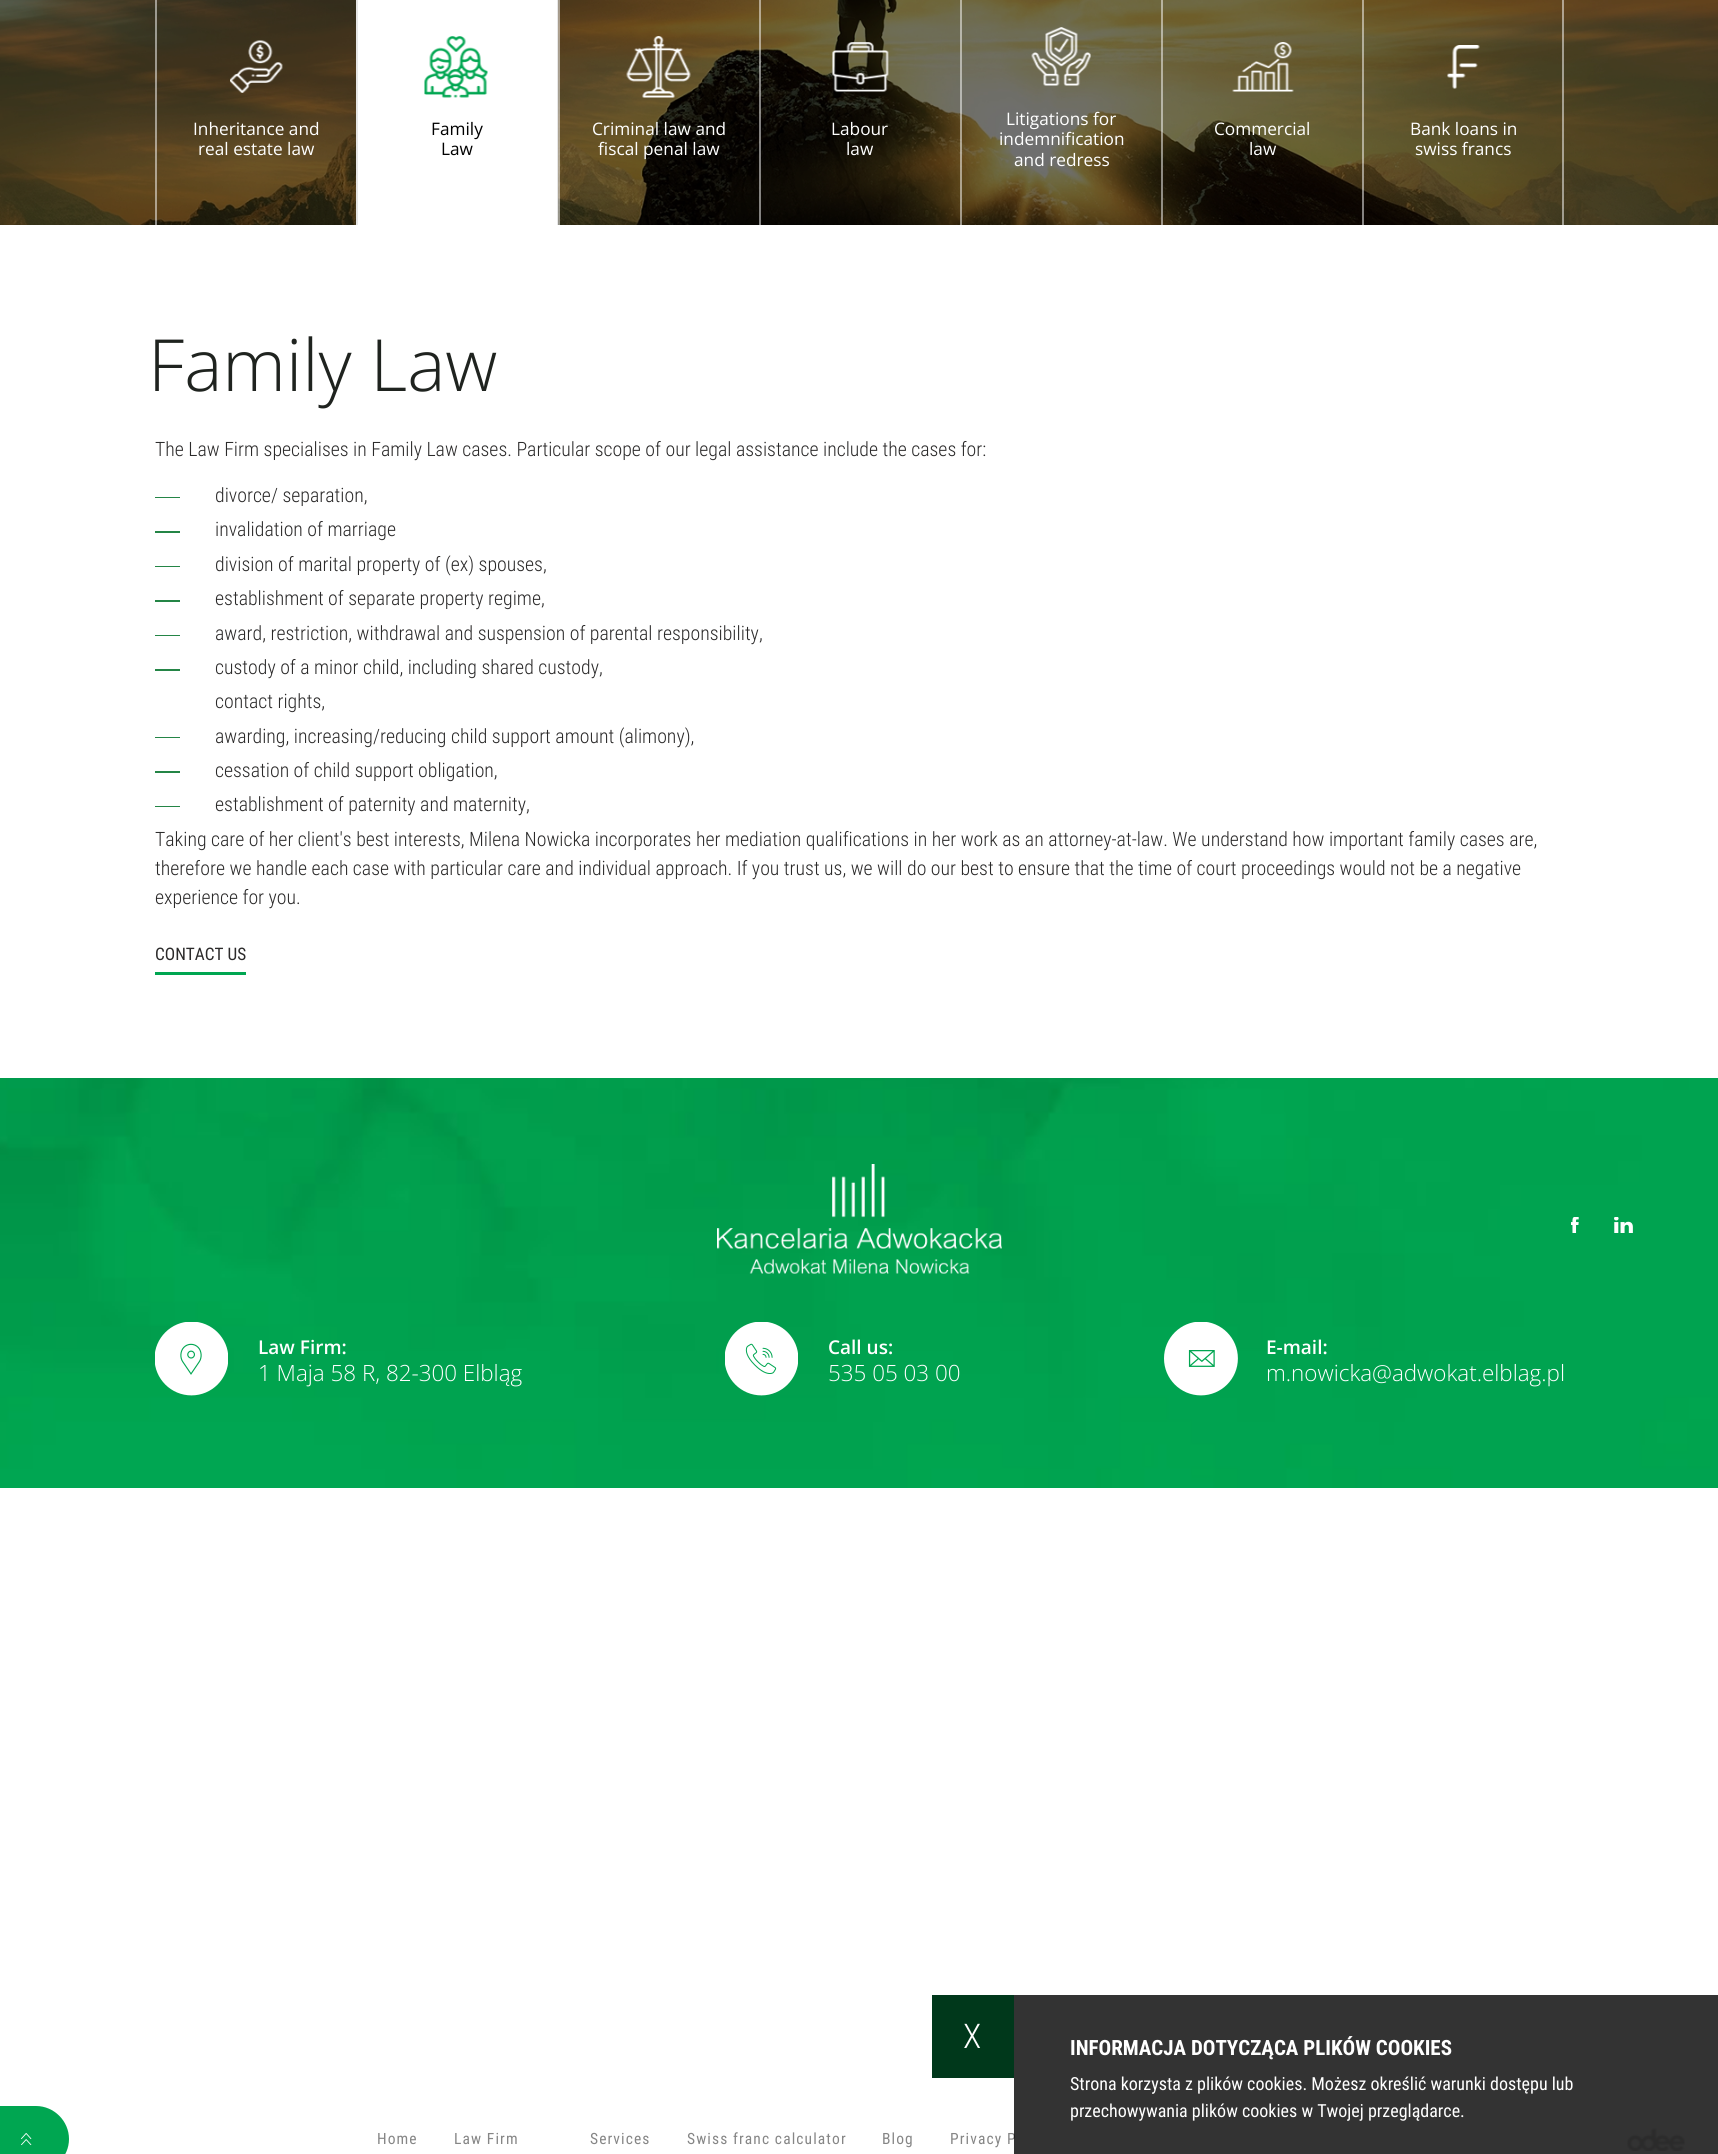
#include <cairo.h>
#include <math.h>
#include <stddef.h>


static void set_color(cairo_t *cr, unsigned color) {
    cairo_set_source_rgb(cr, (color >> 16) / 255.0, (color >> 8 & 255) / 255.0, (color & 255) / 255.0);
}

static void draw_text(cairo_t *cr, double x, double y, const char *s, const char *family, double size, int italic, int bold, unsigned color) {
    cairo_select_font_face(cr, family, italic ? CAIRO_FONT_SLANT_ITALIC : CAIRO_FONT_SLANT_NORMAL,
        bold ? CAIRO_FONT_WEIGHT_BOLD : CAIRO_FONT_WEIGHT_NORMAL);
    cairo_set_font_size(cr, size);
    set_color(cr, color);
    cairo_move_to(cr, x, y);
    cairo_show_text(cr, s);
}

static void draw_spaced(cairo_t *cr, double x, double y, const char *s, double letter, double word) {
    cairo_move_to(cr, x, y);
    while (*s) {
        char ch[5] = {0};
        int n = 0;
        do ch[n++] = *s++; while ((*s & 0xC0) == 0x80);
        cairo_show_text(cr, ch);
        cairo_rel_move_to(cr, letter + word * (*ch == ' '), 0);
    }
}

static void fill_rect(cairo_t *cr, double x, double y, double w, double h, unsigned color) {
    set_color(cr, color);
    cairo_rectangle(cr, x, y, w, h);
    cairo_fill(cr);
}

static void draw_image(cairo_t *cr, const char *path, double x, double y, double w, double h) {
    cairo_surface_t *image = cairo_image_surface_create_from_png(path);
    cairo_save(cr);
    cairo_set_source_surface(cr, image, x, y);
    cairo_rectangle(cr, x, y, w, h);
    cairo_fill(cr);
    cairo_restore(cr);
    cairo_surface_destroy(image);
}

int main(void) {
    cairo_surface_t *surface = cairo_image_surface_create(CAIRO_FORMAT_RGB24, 1718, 2154);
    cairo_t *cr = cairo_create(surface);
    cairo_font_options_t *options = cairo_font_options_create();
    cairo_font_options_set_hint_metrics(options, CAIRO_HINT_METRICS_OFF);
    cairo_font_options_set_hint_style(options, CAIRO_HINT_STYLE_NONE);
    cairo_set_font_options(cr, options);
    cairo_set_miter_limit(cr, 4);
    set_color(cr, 0xFFFFFF);
    cairo_paint(cr);
    draw_image(cr, "assets/img1.png", 0, 0, 1718, 225);
    cairo_set_source_rgba(cr, 1, 1, 1, 0.5);
    cairo_rectangle(cr, 155, 0, 2, 225);
    cairo_fill(cr);
    draw_image(cr, "assets/img2.png", 230, 40, 53, 53);
    draw_text(cr, 193, 135, "Inheritance and", "Open Sans", 17.25, 0, 0, 0xFFFFFF);
    draw_text(cr, 198, 155, "real estate law", "Open Sans", 17.25, 0, 0, 0xFFFFFF);
    fill_rect(cr, 358, 0, 200, 225, 0xFFFFFF);
    cairo_set_source_rgba(cr, 0, 0, 0, 0.1);
    cairo_rectangle(cr, 557, 0, 2, 225);
    cairo_fill(cr);
    fill_rect(cr, 356, 0, 2, 225, 0xE6E6E6);
    draw_image(cr, "assets/img3.png", 424, 36, 64, 62);
    draw_text(cr, 431, 135, "Family", "Open Sans", 17.25, 0, 0, 0x000000);
    draw_text(cr, 441, 155, "Law", "Open Sans", 17.25, 0, 0, 0x000000);
    cairo_set_source_rgba(cr, 1, 1, 1, 0.5);
    cairo_rectangle(cr, 558, 0, 2, 225);
    cairo_fill(cr);
    draw_image(cr, "assets/img4.png", 626, 36, 65, 62);
    draw_text(cr, 592, 135, "Criminal law and", "Open Sans", 17.25, 0, 0, 0xFFFFFF);
    draw_text(cr, 598, 155, "fiscal penal law", "Open Sans", 17.25, 0, 0, 0xFFFFFF);
    cairo_set_source_rgba(cr, 1, 1, 1, 0.5);
    cairo_rectangle(cr, 759, 0, 2, 225);
    cairo_fill(cr);
    draw_image(cr, "assets/img5.png", 832, 42, 57, 50);
    draw_text(cr, 831, 135, "Labour", "Open Sans", 17.25, 0, 0, 0xFFFFFF);
    draw_text(cr, 846, 155, "law", "Open Sans", 17.25, 0, 0, 0xFFFFFF);
    cairo_set_source_rgba(cr, 1, 1, 1, 0.5);
    cairo_rectangle(cr, 960, 0, 2, 225);
    cairo_fill(cr);
    draw_image(cr, "assets/img6.png", 1031, 27, 60, 59);
    draw_text(cr, 1006, 125, "Litigations for", "Open Sans", 17.25, 0, 0, 0xFFFFFF);
    draw_text(cr, 999, 145, "indemnification", "Open Sans", 17.25, 0, 0, 0xFFFFFF);
    draw_text(cr, 1014, 166, "and redress", "Open Sans", 17.25, 0, 0, 0xFFFFFF);
    cairo_set_source_rgba(cr, 1, 1, 1, 0.5);
    cairo_rectangle(cr, 1161, 0, 2, 225);
    cairo_fill(cr);
    draw_image(cr, "assets/img7.png", 1232, 42, 62, 50);
    draw_text(cr, 1214, 135, "Commercial", "Open Sans", 17.25, 0, 0, 0xFFFFFF);
    draw_text(cr, 1249, 155, "law", "Open Sans", 17.25, 0, 0, 0xFFFFFF);
    cairo_set_source_rgba(cr, 1, 1, 1, 0.5);
    cairo_rectangle(cr, 1562, 0, 2, 225);
    cairo_fill(cr);
    cairo_rectangle(cr, 1362, 0, 2, 225);
    cairo_fill(cr);
    draw_image(cr, "assets/img8.png", 1447, 45, 33, 44);
    draw_text(cr, 1410, 135, "Bank loans in", "Open Sans", 17.25, 0, 0, 0xFFFFFF);
    draw_text(cr, 1415, 155, "swiss francs", "Open Sans", 17.25, 0, 0, 0xFFFFFF);
    draw_text(cr, 148, 391, "Family Law", "Open Sans Light", 72, 0, 0, 0x1F231F);
    draw_text(cr, 155, 456, "The Law Firm specialises in Family Law cases. Particular scope of our legal assistance include the cases for:", "Roboto Condensed Light", 19.77, 0, 0, 0x2B2A2A);
    fill_rect(cr, 155, 497, 25, 1, 0x248546);
    draw_text(cr, 215, 502, "divorce/ separation,", "Roboto Condensed Light", 19.77, 0, 0, 0x2B2A2A);
    fill_rect(cr, 155, 531, 25, 2, 0x248546);
    draw_text(cr, 215, 536, "invalidation of marriage", "Roboto Condensed Light", 19.77, 0, 0, 0x2B2A2A);
    fill_rect(cr, 155, 566, 25, 1, 0x248546);
    draw_text(cr, 215, 571, "division of marital property of (ex) spouses,", "Roboto Condensed Light", 19.77, 0, 0, 0x2B2A2A);
    fill_rect(cr, 155, 600, 25, 2, 0x248546);
    draw_text(cr, 215, 605, "establishment of separate property regime,", "Roboto Condensed Light", 19.77, 0, 0, 0x2B2A2A);
    fill_rect(cr, 155, 635, 25, 1, 0x248546);
    draw_text(cr, 215, 640, "award, restriction, withdrawal and suspension of parental responsibility,", "Roboto Condensed Light", 19.77, 0, 0, 0x2B2A2A);
    fill_rect(cr, 155, 669, 25, 2, 0x248546);
    draw_text(cr, 215, 674, "custody of a minor child, including shared custody,", "Roboto Condensed Light", 19.77, 0, 0, 0x2B2A2A);
    draw_text(cr, 215, 708, "contact rights,", "Roboto Condensed Light", 19.77, 0, 0, 0x2B2A2A);
    fill_rect(cr, 155, 737, 25, 1, 0x248546);
    draw_text(cr, 215, 743, "awarding, increasing/reducing child support amount (alimony),", "Roboto Condensed Light", 19.77, 0, 0, 0x2B2A2A);
    fill_rect(cr, 155, 771, 25, 2, 0x248546);
    draw_text(cr, 215, 777, "cessation of child support obligation,", "Roboto Condensed Light", 19.77, 0, 0, 0x2B2A2A);
    fill_rect(cr, 155, 806, 25, 1, 0x248546);
    draw_text(cr, 215, 811, "establishment of paternity and maternity,", "Roboto Condensed Light", 19.77, 0, 0, 0x2B2A2A);
    draw_text(cr, 155, 846, "Taking care of her client's best interests, Milena Nowicka incorporates her mediation qualifications in her work as an attorney-at-law. We understand how important family cases are,", "Roboto Condensed Light", 19.77, 0, 0, 0x2B2A2A);
    draw_text(cr, 155, 875, "therefore we handle each case with particular care and individual approach. If you trust us, we will do our best to ensure that the time of court proceedings would not be a negative", "Roboto Condensed Light", 19.77, 0, 0, 0x2B2A2A);
    draw_text(cr, 155, 904, "experience for you.", "Roboto Condensed Light", 19.77, 0, 0, 0x2B2A2A);
    fill_rect(cr, 155, 972, 91, 3, 0x00A651);
    draw_text(cr, 155, 960, "CONTACT US", "Roboto Condensed", 17.25, 0, 0, 0x2B2A2A);
    draw_image(cr, "assets/img9.png", 0, 1078, 1718, 410);
    draw_image(cr, "assets/img10.png", 717, 1164, 285, 110);
    draw_image(cr, "assets/img11.png", 1571, 1217, 8, 16);
    draw_image(cr, "assets/img12.png", 1614, 1217, 19, 16);
    draw_image(cr, "assets/img13.png", 155, 1322, 73, 74);
    draw_text(cr, 258, 1354, "Law Firm:", "Open Sans SemiBold", 19, 0, 0, 0xFFFFFF);
    draw_text(cr, 258, 1381, "1 Maja 58 R, 82-300 Elbląg", "Open Sans Light", 22.4, 0, 0, 0xFFFFFF);
    draw_image(cr, "assets/img14.png", 725, 1322, 73, 74);
    draw_text(cr, 828, 1354, "Call us:", "Open Sans SemiBold", 19, 0, 0, 0xFFFFFF);
    draw_text(cr, 828, 1381, "535 05 03 00", "Open Sans Light", 22.4, 0, 0, 0xFFFFFF);
    draw_image(cr, "assets/img15.png", 1164, 1322, 74, 74);
    draw_text(cr, 1266, 1354, "E-mail:", "Open Sans SemiBold", 19, 0, 0, 0xFFFFFF);
    draw_text(cr, 1266, 1381, "m.nowicka@adwokat.elblag.pl", "Open Sans Light", 22.4, 0, 0, 0xFFFFFF);
    cairo_select_font_face(cr, "Roboto Condensed", CAIRO_FONT_SLANT_NORMAL, CAIRO_FONT_WEIGHT_NORMAL);
    cairo_set_font_size(cr, 15.5);
    set_color(cr, 0x868686);
    draw_spaced(cr, 950, 2144, "Privacy P", 1.1, 0);
    draw_image(cr, "assets/img17.png", 1627, 2128, 58, 23);
    cairo_set_source_rgba(cr, 0, 0, 0, 0.8);
    cairo_rectangle(cr, 1014, 1995, 704, 159);
    cairo_fill(cr);
    fill_rect(cr, 932, 1995, 82, 83, 0x00381B);
    draw_text(cr, 963, 2048, "X", "Roboto Condensed Light", 34, 0, 0, 0xFFFFFF);
    draw_text(cr, 1070, 2055, "INFORMACJA DOTYCZĄCA PLIKÓW COOKIES", "Roboto Condensed", 21, 0, 1, 0xFFFFFF);
    draw_text(cr, 1070, 2090, "Strona korzysta z plików cookies. Możesz określić warunki dostępu lub", "Roboto Condensed", 18, 0, 0, 0xFFFFFF);
    draw_text(cr, 1070, 2117, "przechowywania plików cookies w Twojej przeglądarce.", "Roboto Condensed", 18, 0, 0, 0xFFFFFF);
    set_color(cr, 0x00A651);
    cairo_new_path(cr);
    cairo_move_to(cr, 0, 2106);
    cairo_line_to(cr, 36, 2106);
    cairo_curve_to(cr, 54, 2106, 69, 2121, 69, 2139);
    cairo_curve_to(cr, 69, 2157, 54, 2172, 36, 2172);
    cairo_line_to(cr, 0, 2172);
    cairo_close_path(cr);
    cairo_fill(cr);
    draw_image(cr, "assets/img16.png", 21, 2133, 11, 12);
    cairo_set_font_size(cr, 15.5);
    set_color(cr, 0x868686);
    draw_spaced(cr, 377, 2144, "Home", 1.1, 0);
    draw_spaced(cr, 454, 2144, "Law Firm", 1.1, 0);
    draw_spaced(cr, 590, 2144, "Services", 1.1, 0);
    draw_spaced(cr, 687, 2144, "Swiss franc calculator", 1.1, 0);
    draw_spaced(cr, 882, 2144, "Blog", 1.1, 0);
    cairo_surface_write_to_png(surface, "output.png");
    cairo_font_options_destroy(options);
    cairo_destroy(cr);
    cairo_surface_destroy(surface);
    return 0;
}
